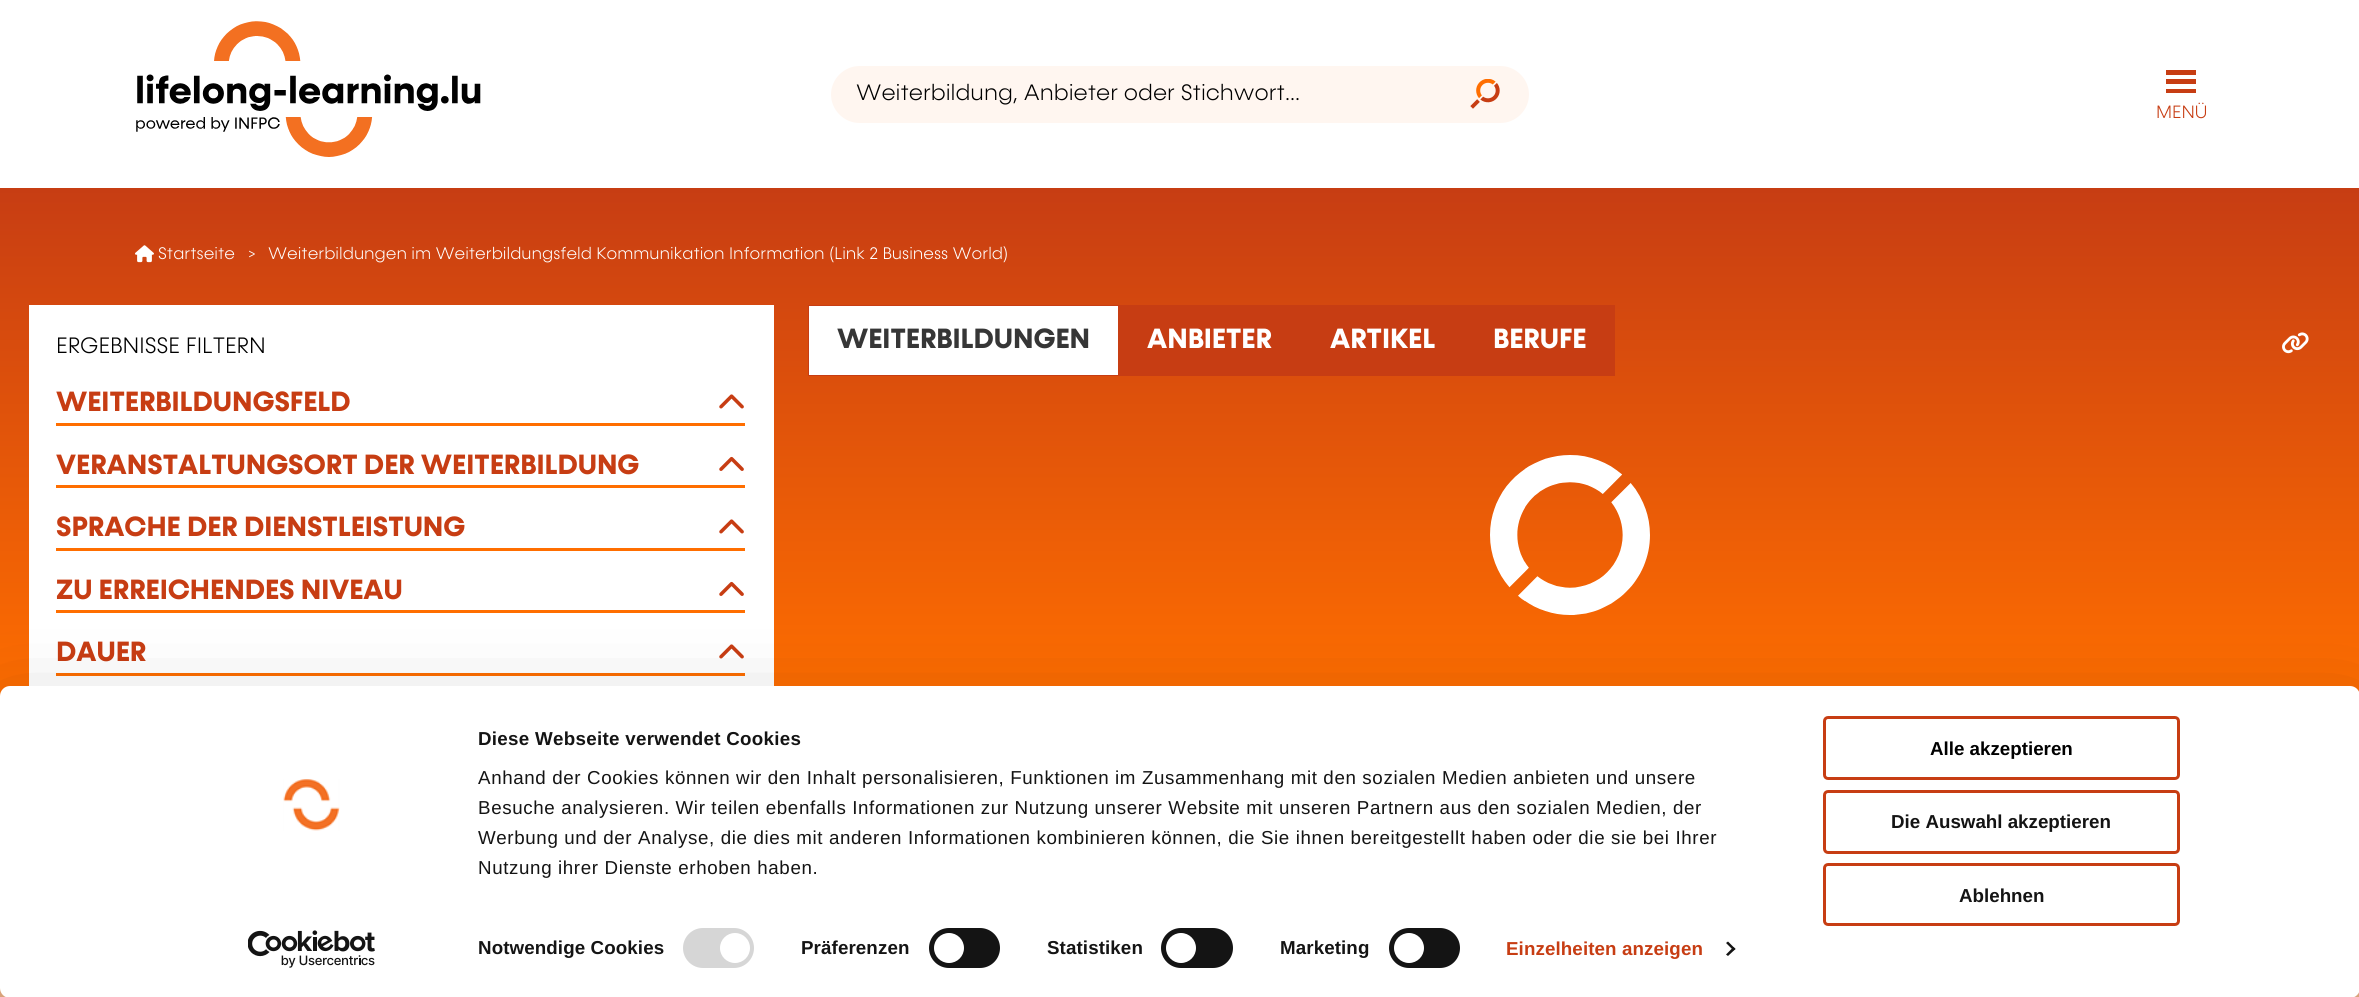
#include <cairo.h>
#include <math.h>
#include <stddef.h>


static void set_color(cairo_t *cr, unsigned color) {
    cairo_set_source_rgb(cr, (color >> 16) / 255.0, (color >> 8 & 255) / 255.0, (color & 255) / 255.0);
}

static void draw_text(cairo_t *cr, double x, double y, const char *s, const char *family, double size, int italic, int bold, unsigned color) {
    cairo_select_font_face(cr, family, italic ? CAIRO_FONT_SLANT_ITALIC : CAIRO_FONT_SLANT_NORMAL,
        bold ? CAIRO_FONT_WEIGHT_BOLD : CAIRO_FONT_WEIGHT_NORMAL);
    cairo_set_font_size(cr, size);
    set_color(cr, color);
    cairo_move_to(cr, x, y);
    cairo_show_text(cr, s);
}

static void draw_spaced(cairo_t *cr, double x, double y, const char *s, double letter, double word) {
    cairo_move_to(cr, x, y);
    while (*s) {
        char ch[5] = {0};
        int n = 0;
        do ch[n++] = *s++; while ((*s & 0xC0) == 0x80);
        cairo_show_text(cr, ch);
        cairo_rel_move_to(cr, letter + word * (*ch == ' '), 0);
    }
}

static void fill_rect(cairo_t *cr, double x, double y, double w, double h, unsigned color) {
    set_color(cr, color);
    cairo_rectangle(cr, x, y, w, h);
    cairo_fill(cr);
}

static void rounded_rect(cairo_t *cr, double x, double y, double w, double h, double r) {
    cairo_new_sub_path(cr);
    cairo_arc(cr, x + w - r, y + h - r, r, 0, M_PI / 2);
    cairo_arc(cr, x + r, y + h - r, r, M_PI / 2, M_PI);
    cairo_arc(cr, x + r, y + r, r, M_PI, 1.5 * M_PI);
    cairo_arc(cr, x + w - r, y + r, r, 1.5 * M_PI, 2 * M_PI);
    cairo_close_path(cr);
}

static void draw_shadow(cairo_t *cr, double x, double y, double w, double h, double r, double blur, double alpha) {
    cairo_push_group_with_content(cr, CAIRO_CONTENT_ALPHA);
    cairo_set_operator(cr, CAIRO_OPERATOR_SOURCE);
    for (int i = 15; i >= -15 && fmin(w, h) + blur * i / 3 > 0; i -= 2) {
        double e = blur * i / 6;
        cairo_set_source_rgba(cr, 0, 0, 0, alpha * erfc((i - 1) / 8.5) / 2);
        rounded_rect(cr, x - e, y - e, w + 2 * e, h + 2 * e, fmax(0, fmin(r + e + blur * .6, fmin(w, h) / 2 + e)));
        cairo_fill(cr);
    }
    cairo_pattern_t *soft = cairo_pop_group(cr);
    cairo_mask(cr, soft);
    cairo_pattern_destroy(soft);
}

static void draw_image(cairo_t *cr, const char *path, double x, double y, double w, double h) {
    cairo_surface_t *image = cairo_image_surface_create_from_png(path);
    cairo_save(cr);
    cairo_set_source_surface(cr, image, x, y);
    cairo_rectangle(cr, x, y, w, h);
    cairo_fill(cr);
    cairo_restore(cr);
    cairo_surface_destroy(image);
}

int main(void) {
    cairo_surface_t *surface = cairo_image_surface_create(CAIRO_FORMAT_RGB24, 2359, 997);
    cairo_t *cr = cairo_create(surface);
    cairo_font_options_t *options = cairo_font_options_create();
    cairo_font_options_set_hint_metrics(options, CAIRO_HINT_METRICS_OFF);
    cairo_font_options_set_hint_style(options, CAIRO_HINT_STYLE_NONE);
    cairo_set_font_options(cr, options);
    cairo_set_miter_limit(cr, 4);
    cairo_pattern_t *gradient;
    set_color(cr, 0xFFFFFF);
    cairo_paint(cr);
    draw_image(cr, "assets/img1.png", 136, 21, 345, 136);
    set_color(cr, 0xFFF6F0);
    cairo_new_path(cr);
    cairo_move_to(cr, 859.5, 66);
    cairo_line_to(cr, 1444, 66);
    cairo_line_to(cr, 1444, 123);
    cairo_line_to(cr, 859.5, 123);
    cairo_curve_to(cr, 844, 123, 831, 110, 831, 94.5);
    cairo_curve_to(cr, 831, 79, 844, 66, 859.5, 66);
    cairo_close_path(cr);
    cairo_fill(cr);
    draw_text(cr, 856, 100, "Weiterbildung, Anbieter oder Stichwort...", "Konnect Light", 22.5, 0, 0, 0x000000);
    set_color(cr, 0xFFF6F0);
    cairo_new_path(cr);
    cairo_move_to(cr, 1443, 66);
    cairo_line_to(cr, 1500.5, 66);
    cairo_curve_to(cr, 1516, 66, 1529, 79, 1529, 94.5);
    cairo_curve_to(cr, 1529, 110, 1516, 123, 1500.5, 123);
    cairo_line_to(cr, 1443, 123);
    cairo_close_path(cr);
    cairo_fill(cr);
    draw_image(cr, "assets/img2.png", 1470, 79, 30, 30);
    fill_rect(cr, 2166, 70, 30, 5, 0xC73D13);
    fill_rect(cr, 2166, 79, 30, 5, 0xC73D13);
    fill_rect(cr, 2166, 89, 30, 4, 0xC73D13);
    draw_text(cr, 2156, 118, "MENÜ", "Konnect Light", 18, 0, 0, 0xC73D13);
    gradient = cairo_pattern_create_linear(1180, 187, 1180, 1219);
    cairo_pattern_add_color_stop_rgba(gradient, 0, 0.78, 0.239, 0.075, 1);
    cairo_pattern_add_color_stop_rgba(gradient, 0.5, 1, 0.431, 0, 1);
    cairo_pattern_add_color_stop_rgba(gradient, 1, 1, 1, 1, 1);
    cairo_set_source(cr, gradient);
    cairo_pattern_destroy(gradient);
    cairo_rectangle(cr, 0, 188, 2359, 809);
    cairo_fill(cr);
    draw_image(cr, "assets/img3.png", 135, 245, 19, 18);
    draw_text(cr, 158, 259, "Startseite", "Konnect Light", 16.9, 0, 0, 0xFFFFFF);
    draw_text(cr, 248, 259, ">", "Konnect Light", 16.9, 0, 0, 0xFFFFFF);
    draw_text(cr, 268, 259, "Weiterbildungen im Weiterbildungsfeld Kommunikation Information (Link 2 Business World)", "Konnect Light", 16.9, 0, 0, 0xFFFFFF);
    fill_rect(cr, 29, 305, 745, 381, 0xFFFFFF);
    draw_text(cr, 56, 353, "ERGEBNISSE FILTERN", "Konnect Light", 22.5, 0, 0, 0x000000);
    fill_rect(cr, 56, 423, 689, 3, 0xFF6E00);
    draw_text(cr, 56, 411, "WEITERBILDUNGSFELD", "Konnect", 28.1, 0, 1, 0xC73D13);
    draw_image(cr, "assets/img4.png", 719, 394, 25, 15);
    fill_rect(cr, 56, 485, 689, 3, 0xFF6E00);
    draw_text(cr, 56, 474, "VERANSTALTUNGSORT DER WEITERBILDUNG", "Konnect", 28.1, 0, 1, 0xC73D13);
    draw_image(cr, "assets/img5.png", 719, 456, 25, 15);
    fill_rect(cr, 56, 548, 689, 3, 0xFF6E00);
    draw_text(cr, 56, 536, "SPRACHE DER DIENSTLEISTUNG", "Konnect", 28.1, 0, 1, 0xC73D13);
    draw_image(cr, "assets/img4.png", 719, 519, 25, 15);
    fill_rect(cr, 56, 610, 689, 3, 0xFF6E00);
    draw_text(cr, 56, 599, "ZU ERREICHENDES NIVEAU", "Konnect", 28.1, 0, 1, 0xC73D13);
    draw_image(cr, "assets/img5.png", 719, 581, 25, 15);
    fill_rect(cr, 56, 673, 689, 3, 0xFF6E00);
    draw_text(cr, 56, 661, "DAUER", "Konnect", 28.1, 0, 1, 0xC73D13);
    draw_image(cr, "assets/img4.png", 719, 644, 25, 15);
    set_color(cr, 0xFFFFFF);
    cairo_rectangle(cr, 808.5, 305.5, 310, 70);
    cairo_fill_preserve(cr);
    set_color(cr, 0xC73D13);
    cairo_set_line_width(cr, 1);
    cairo_stroke(cr);
    draw_text(cr, 837, 348, "WEITERBILDUNGEN", "Konnect", 28.1, 0, 1, 0x363636);
    fill_rect(cr, 1119, 305, 496, 71, 0xC73D13);
    draw_text(cr, 1147, 348, "ANBIETER", "Konnect", 28.1, 0, 1, 0xFFFFFF);
    draw_text(cr, 1330, 348, "ARTIKEL", "Konnect", 28.1, 0, 1, 0xFFFFFF);
    draw_text(cr, 1493, 348, "BERUFE", "Konnect", 28.1, 0, 1, 0xFFFFFF);
    draw_image(cr, "assets/img6.png", 2282, 332, 27, 22);
    draw_image(cr, "assets/img7.png", 1490, 455, 160, 160);
    set_color(cr, 0x000000);
    draw_shadow(cr, 0, 724, 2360, 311, 10, 44, 0.3);
    set_color(cr, 0xFFFFFF);
    rounded_rect(cr, 0, 686, 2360, 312, 10);
    cairo_fill(cr);
    draw_image(cr, "assets/img8.png", 283, 779, 57, 52);
    draw_image(cr, "assets/img9.png", 248, 930, 127, 38);
    cairo_select_font_face(cr, "Liberation Sans", CAIRO_FONT_SLANT_NORMAL, CAIRO_FONT_WEIGHT_BOLD);
    cairo_set_font_size(cr, 18.75);
    set_color(cr, 0x141414);
    draw_spaced(cr, 478, 745, "Diese Webseite verwendet Cookies", 0.3, 0);
    cairo_select_font_face(cr, "Liberation Sans", CAIRO_FONT_SLANT_NORMAL, CAIRO_FONT_WEIGHT_NORMAL);
    draw_spaced(cr, 478, 784, "Anhand der Cookies können wir den Inhalt personalisieren, Funktionen im Zusammenhang mit den sozialen Medien anbieten und unsere", 0.62, 0);
    draw_spaced(cr, 478, 814, "Besuche analysieren. Wir teilen ebenfalls Informationen zur Nutzung unserer Website mit unseren Partnern aus den sozialen Medien, der", 0.62, 0);
    draw_spaced(cr, 478, 844, "Werbung und der Analyse, die dies mit anderen Informationen kombinieren können, die Sie ihnen bereitgestellt haben oder die sie bei Ihrer", 0.62, 0);
    draw_spaced(cr, 478, 874, "Nutzung ihrer Dienste erhoben haben.", 0.62, 0);
    cairo_select_font_face(cr, "Liberation Sans", CAIRO_FONT_SLANT_NORMAL, CAIRO_FONT_WEIGHT_BOLD);
    draw_spaced(cr, 478, 954, "Notwendige Cookies", 0.1, 0);
    set_color(cr, 0xD6D6D6);
    rounded_rect(cr, 683, 928, 71, 40, 20);
    cairo_fill(cr);
    set_color(cr, 0xFFFFFF);
    cairo_arc(cr, 735, 948, 15, 0, 2 * M_PI);
    cairo_fill(cr);
    set_color(cr, 0x141414);
    draw_spaced(cr, 801, 954, "Präferenzen", 0.1, 0);
    rounded_rect(cr, 929, 928, 71, 40, 20);
    cairo_fill(cr);
    set_color(cr, 0xFFFFFF);
    cairo_arc(cr, 949, 948, 15, 0, 2 * M_PI);
    cairo_fill(cr);
    set_color(cr, 0x141414);
    draw_spaced(cr, 1047, 954, "Statistiken", 0.1, 0);
    rounded_rect(cr, 1161, 928, 72, 40, 20);
    cairo_fill(cr);
    set_color(cr, 0xFFFFFF);
    cairo_arc(cr, 1181, 948, 15, 0, 2 * M_PI);
    cairo_fill(cr);
    set_color(cr, 0x141414);
    draw_spaced(cr, 1280, 954, "Marketing", 0.1, 0);
    rounded_rect(cr, 1389, 928, 71, 40, 20);
    cairo_fill(cr);
    set_color(cr, 0xFFFFFF);
    cairo_arc(cr, 1409, 948, 15, 0, 2 * M_PI);
    cairo_fill(cr);
    set_color(cr, 0xC73D13);
    draw_spaced(cr, 1506, 955, "Einzelheiten anzeigen", 0.1, 0);
    set_color(cr, 0x141414);
    cairo_new_path(cr);
    cairo_move_to(cr, 1728, 941.5);
    cairo_line_to(cr, 1735.5, 949);
    cairo_line_to(cr, 1733.5, 950.5);
    cairo_line_to(cr, 1726, 943);
    cairo_close_path(cr);
    cairo_fill(cr);
    cairo_new_path(cr);
    cairo_move_to(cr, 1733.5, 947);
    cairo_line_to(cr, 1735.5, 949);
    cairo_line_to(cr, 1728, 956);
    cairo_line_to(cr, 1726, 954.5);
    cairo_close_path(cr);
    cairo_fill(cr);
    rounded_rect(cr, 1824.5, 717.5, 354, 61, 3.5);
    set_color(cr, 0xC73D13);
    cairo_set_line_width(cr, 3);
    cairo_stroke(cr);
    draw_text(cr, 1930, 755, "Alle akzeptieren", "Liberation Sans", 18.75, 0, 1, 0x000000);
    rounded_rect(cr, 1824.5, 791.5, 354, 61, 3.5);
    set_color(cr, 0xC73D13);
    cairo_stroke(cr);
    draw_text(cr, 1891, 828, "Die Auswahl akzeptieren", "Liberation Sans", 18.75, 0, 1, 0x141414);
    rounded_rect(cr, 1824.5, 864.5, 354, 60, 3.5);
    set_color(cr, 0xC73D13);
    cairo_stroke(cr);
    draw_text(cr, 1959, 902, "Ablehnen", "Liberation Sans", 18.75, 0, 1, 0x141414);
    cairo_surface_write_to_png(surface, "output.png");
    cairo_font_options_destroy(options);
    cairo_destroy(cr);
    cairo_surface_destroy(surface);
    return 0;
}
